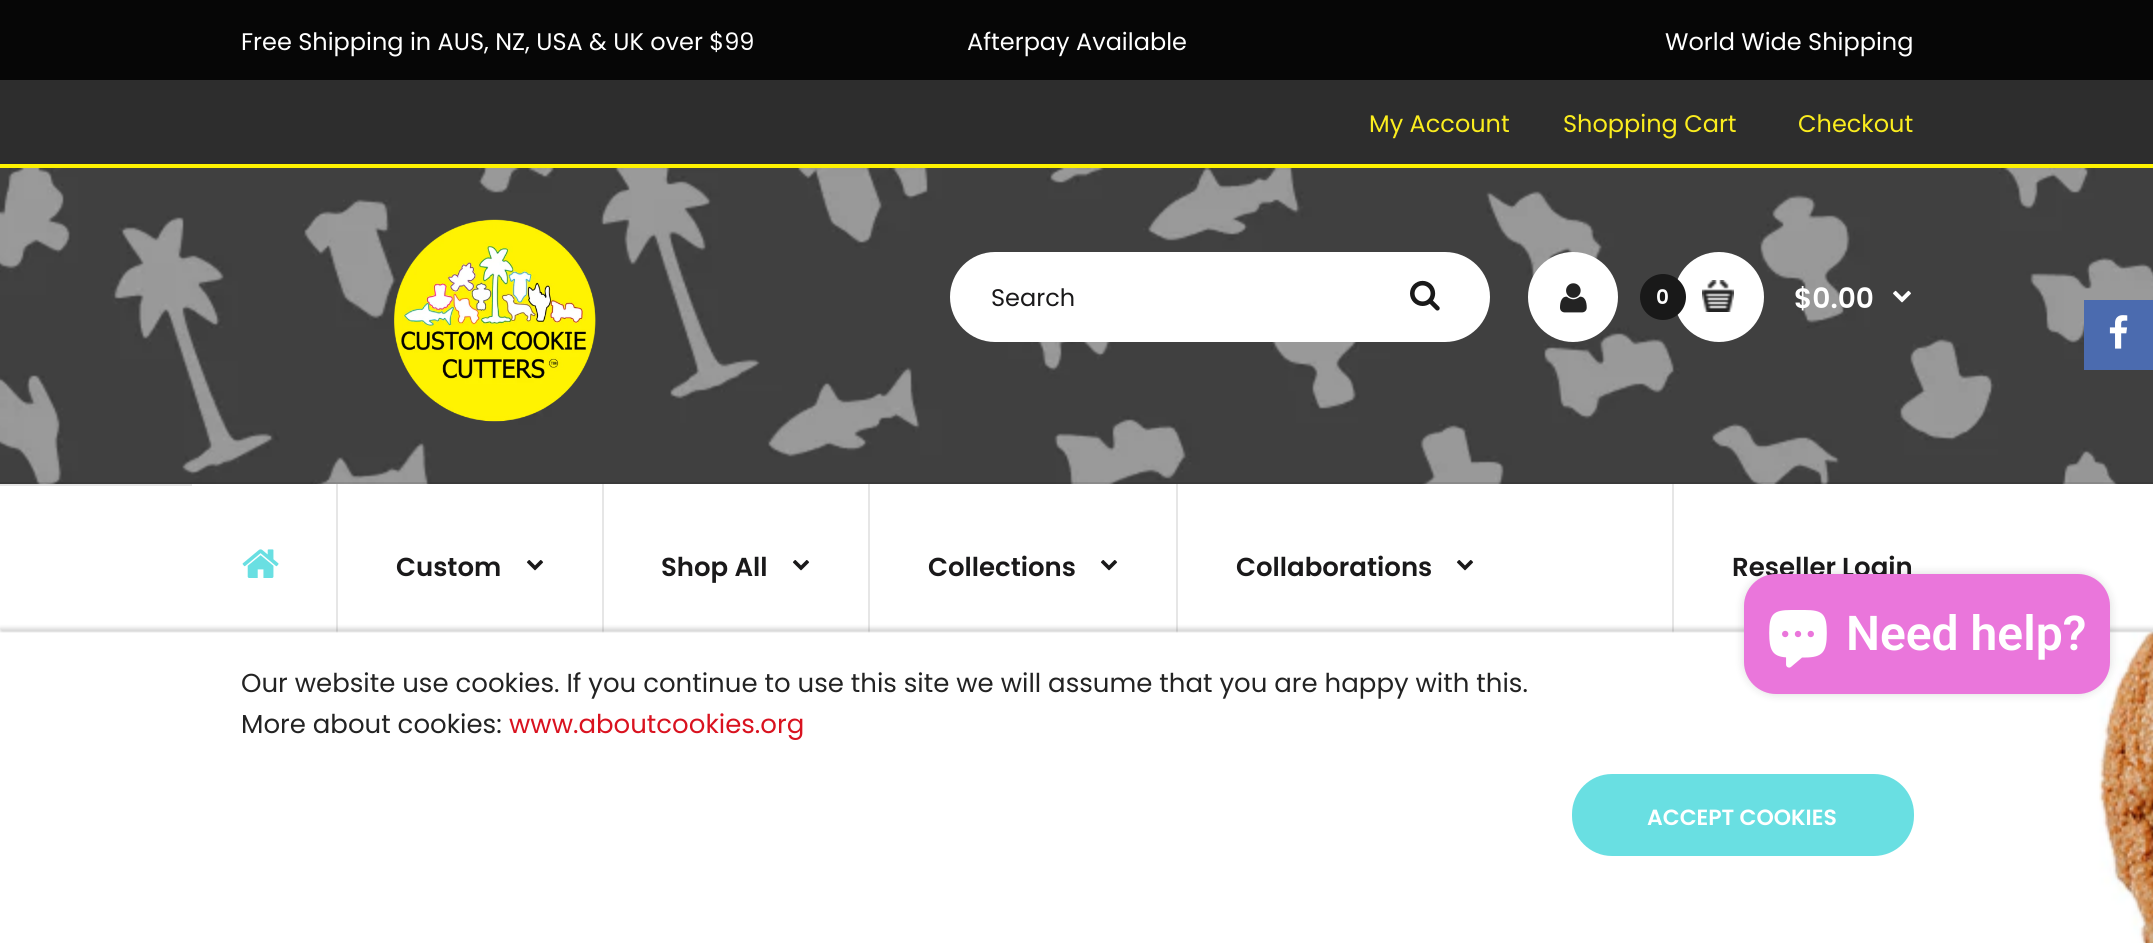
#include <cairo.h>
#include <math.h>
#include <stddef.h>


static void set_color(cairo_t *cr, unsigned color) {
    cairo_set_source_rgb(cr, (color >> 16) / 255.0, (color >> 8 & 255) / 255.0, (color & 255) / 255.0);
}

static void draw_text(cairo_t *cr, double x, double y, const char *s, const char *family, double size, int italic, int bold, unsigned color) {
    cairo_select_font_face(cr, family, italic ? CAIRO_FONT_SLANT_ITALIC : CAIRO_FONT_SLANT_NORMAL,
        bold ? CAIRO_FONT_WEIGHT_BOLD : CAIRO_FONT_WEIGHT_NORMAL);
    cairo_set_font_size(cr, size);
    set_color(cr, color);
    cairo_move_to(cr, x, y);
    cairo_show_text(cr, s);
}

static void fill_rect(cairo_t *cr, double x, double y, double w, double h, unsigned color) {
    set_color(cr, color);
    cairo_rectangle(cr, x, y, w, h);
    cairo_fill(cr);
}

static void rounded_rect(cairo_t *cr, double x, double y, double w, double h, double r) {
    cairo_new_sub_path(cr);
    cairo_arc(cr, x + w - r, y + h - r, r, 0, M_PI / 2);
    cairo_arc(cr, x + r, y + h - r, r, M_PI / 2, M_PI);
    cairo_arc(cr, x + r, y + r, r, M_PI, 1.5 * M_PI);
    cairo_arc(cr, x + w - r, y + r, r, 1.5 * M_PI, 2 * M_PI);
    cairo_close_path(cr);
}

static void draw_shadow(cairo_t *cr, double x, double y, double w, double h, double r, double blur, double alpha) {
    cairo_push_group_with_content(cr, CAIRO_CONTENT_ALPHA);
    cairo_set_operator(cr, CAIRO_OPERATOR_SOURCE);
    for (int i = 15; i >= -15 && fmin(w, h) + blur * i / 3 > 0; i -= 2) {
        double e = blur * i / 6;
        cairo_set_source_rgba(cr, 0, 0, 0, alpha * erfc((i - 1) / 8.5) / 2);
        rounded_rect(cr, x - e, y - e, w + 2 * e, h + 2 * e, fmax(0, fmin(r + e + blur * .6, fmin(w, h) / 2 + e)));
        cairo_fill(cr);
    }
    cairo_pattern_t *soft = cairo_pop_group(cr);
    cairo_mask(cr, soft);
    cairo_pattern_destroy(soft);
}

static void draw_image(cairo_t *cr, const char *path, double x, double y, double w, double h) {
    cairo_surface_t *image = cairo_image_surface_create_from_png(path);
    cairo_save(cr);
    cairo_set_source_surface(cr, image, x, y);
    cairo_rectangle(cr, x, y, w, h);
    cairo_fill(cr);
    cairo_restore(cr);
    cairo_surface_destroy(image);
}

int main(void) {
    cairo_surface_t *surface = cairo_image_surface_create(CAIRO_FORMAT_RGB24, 2153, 943);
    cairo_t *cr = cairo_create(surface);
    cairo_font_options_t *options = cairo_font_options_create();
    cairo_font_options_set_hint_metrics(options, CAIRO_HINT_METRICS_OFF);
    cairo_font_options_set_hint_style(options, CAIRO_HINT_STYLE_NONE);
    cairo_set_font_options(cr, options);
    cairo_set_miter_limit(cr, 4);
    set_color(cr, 0x060606);
    cairo_paint(cr);
    draw_text(cr, 241, 50, "Free Shipping in AUS, NZ, USA & UK over $99", "Poppins", 24, 0, 0, 0xFFFFFF);
    draw_text(cr, 967, 50, "Afterpay Available", "Poppins", 24, 0, 0, 0xFFFFFF);
    draw_text(cr, 1665, 50, "World Wide Shipping", "Poppins", 24, 0, 0, 0xFFFFFF);
    fill_rect(cr, 0, 164, 2153, 4, 0xFEF200);
    draw_image(cr, "assets/img1.png", 0, 168, 2153, 316);
    fill_rect(cr, 0, 80, 2153, 84, 0x2D2D2D);
    draw_text(cr, 1369, 132, "My Account", "Poppins", 24, 0, 0, 0xFBED1E);
    draw_text(cr, 1563, 132, "Shopping Cart", "Poppins", 24, 0, 0, 0xFBED1E);
    draw_text(cr, 1798, 132, "Checkout", "Poppins", 24, 0, 0, 0xFBED1E);
    draw_image(cr, "assets/img2.png", 394, 219, 202, 203);
    set_color(cr, 0xFFFFFF);
    rounded_rect(cr, 951, 253, 538, 88, 44);
    cairo_fill_preserve(cr);
    cairo_stroke(cr);
    draw_text(cr, 991, 306, "Search", "Poppins", 24, 0, 0, 0x1A191A);
    draw_image(cr, "assets/img3.png", 1410, 280, 30, 31);
    set_color(cr, 0xFFFFFF);
    cairo_arc(cr, 1573, 297, 44, 0, 2 * M_PI);
    cairo_fill_preserve(cr);
    cairo_stroke(cr);
    draw_image(cr, "assets/img4.png", 1560, 283, 27, 30);
    cairo_arc(cr, 1719, 297, 44, 0, 2 * M_PI);
    cairo_fill_preserve(cr);
    cairo_stroke(cr);
    set_color(cr, 0x191919);
    cairo_arc(cr, 1663, 297, 23, 0, 2 * M_PI);
    cairo_fill(cr);
    draw_text(cr, 1656, 304, "0", "Poppins SemiBold", 20, 0, 0, 0xFFFFFF);
    draw_image(cr, "assets/img5.png", 1702, 280, 32, 32);
    draw_text(cr, 1794, 308, "$0.00", "Poppins SemiBold", 28, 0, 0, 0xFFFFFF);
    draw_image(cr, "assets/img6.png", 1893, 290, 18, 13);
    fill_rect(cr, 0, 484, 2153, 149, 0xFFFFFF);
    cairo_rectangle(cr, -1, 483, 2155, 322);
    cairo_set_source_rgba(cr, 0, 0, 0, 0.1);
    cairo_stroke(cr);
    fill_rect(cr, 0, 484, 192, 2, 0xE6E6E6);
    draw_image(cr, "assets/img7.png", 242, 549, 37, 29);
    fill_rect(cr, 336, 484, 2, 149, 0xE6E6E6);
    draw_text(cr, 396, 576, "Custom", "Poppins SemiBold", 26, 0, 0, 0x1A191A);
    draw_image(cr, "assets/img8.png", 526, 560, 18, 11);
    fill_rect(cr, 602, 484, 2, 149, 0xE6E6E6);
    draw_text(cr, 661, 576, "Shop All", "Poppins SemiBold", 26, 0, 0, 0x1A191A);
    draw_image(cr, "assets/img8.png", 792, 560, 18, 11);
    fill_rect(cr, 868, 484, 2, 149, 0xE6E6E6);
    draw_text(cr, 928, 576, "Collections", "Poppins SemiBold", 26, 0, 0, 0x1A191A);
    draw_image(cr, "assets/img8.png", 1100, 560, 18, 11);
    fill_rect(cr, 1176, 484, 2, 149, 0xE6E6E6);
    draw_text(cr, 1236, 576, "Collaborations", "Poppins SemiBold", 26, 0, 0, 0x1A191A);
    draw_image(cr, "assets/img8.png", 1456, 560, 18, 11);
    fill_rect(cr, 1672, 484, 2, 149, 0xE6E6E6);
    draw_text(cr, 1732, 576, "Reseller Login", "Poppins SemiBold", 26, 0, 0, 0x1A191A);
    fill_rect(cr, 2084, 300, 69, 70, 0x4B6BAF);
    draw_image(cr, "assets/img9.png", 2109, 315, 19, 34);
    set_color(cr, 0x323232);
    draw_shadow(cr, 0, 628, 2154, 312, 0, 2, 0.2);
    draw_image(cr, "assets/img11.png", 0, 631, 2153, 312);
    set_color(cr, 0x000000);
    draw_shadow(cr, 1744, 574, 366, 120, 32, 5, 0.15);
    set_color(cr, 0xEA76DB);
    rounded_rect(cr, 1744, 574, 366, 120, 32);
    cairo_fill(cr);
    draw_image(cr, "assets/img10.png", 1769, 610, 58, 58);
    draw_text(cr, 1846, 650, "Need help?", "Roboto SemiBold", 48, 0, 0, 0xFFFFFF);
    draw_text(cr, 241, 692, "Our website use cookies. If you continue to use this site we will assume that you are happy with this.", "Poppins", 26, 0, 0, 0x232323);
    draw_text(cr, 241, 733, "More about cookies:", "Poppins", 26, 0, 0, 0x232323);
    draw_text(cr, 509, 733, "www.aboutcookies.org", "Poppins", 26, 0, 0, 0xD9121F);
    set_color(cr, 0x69DFE2);
    rounded_rect(cr, 1572, 774, 342, 82, 40);
    cairo_fill(cr);
    draw_text(cr, 1647, 825, "ACCEPT COOKIES", "Poppins SemiBold", 22, 0, 0, 0xFFFFFF);
    cairo_surface_write_to_png(surface, "output.png");
    cairo_font_options_destroy(options);
    cairo_destroy(cr);
    cairo_surface_destroy(surface);
    return 0;
}
